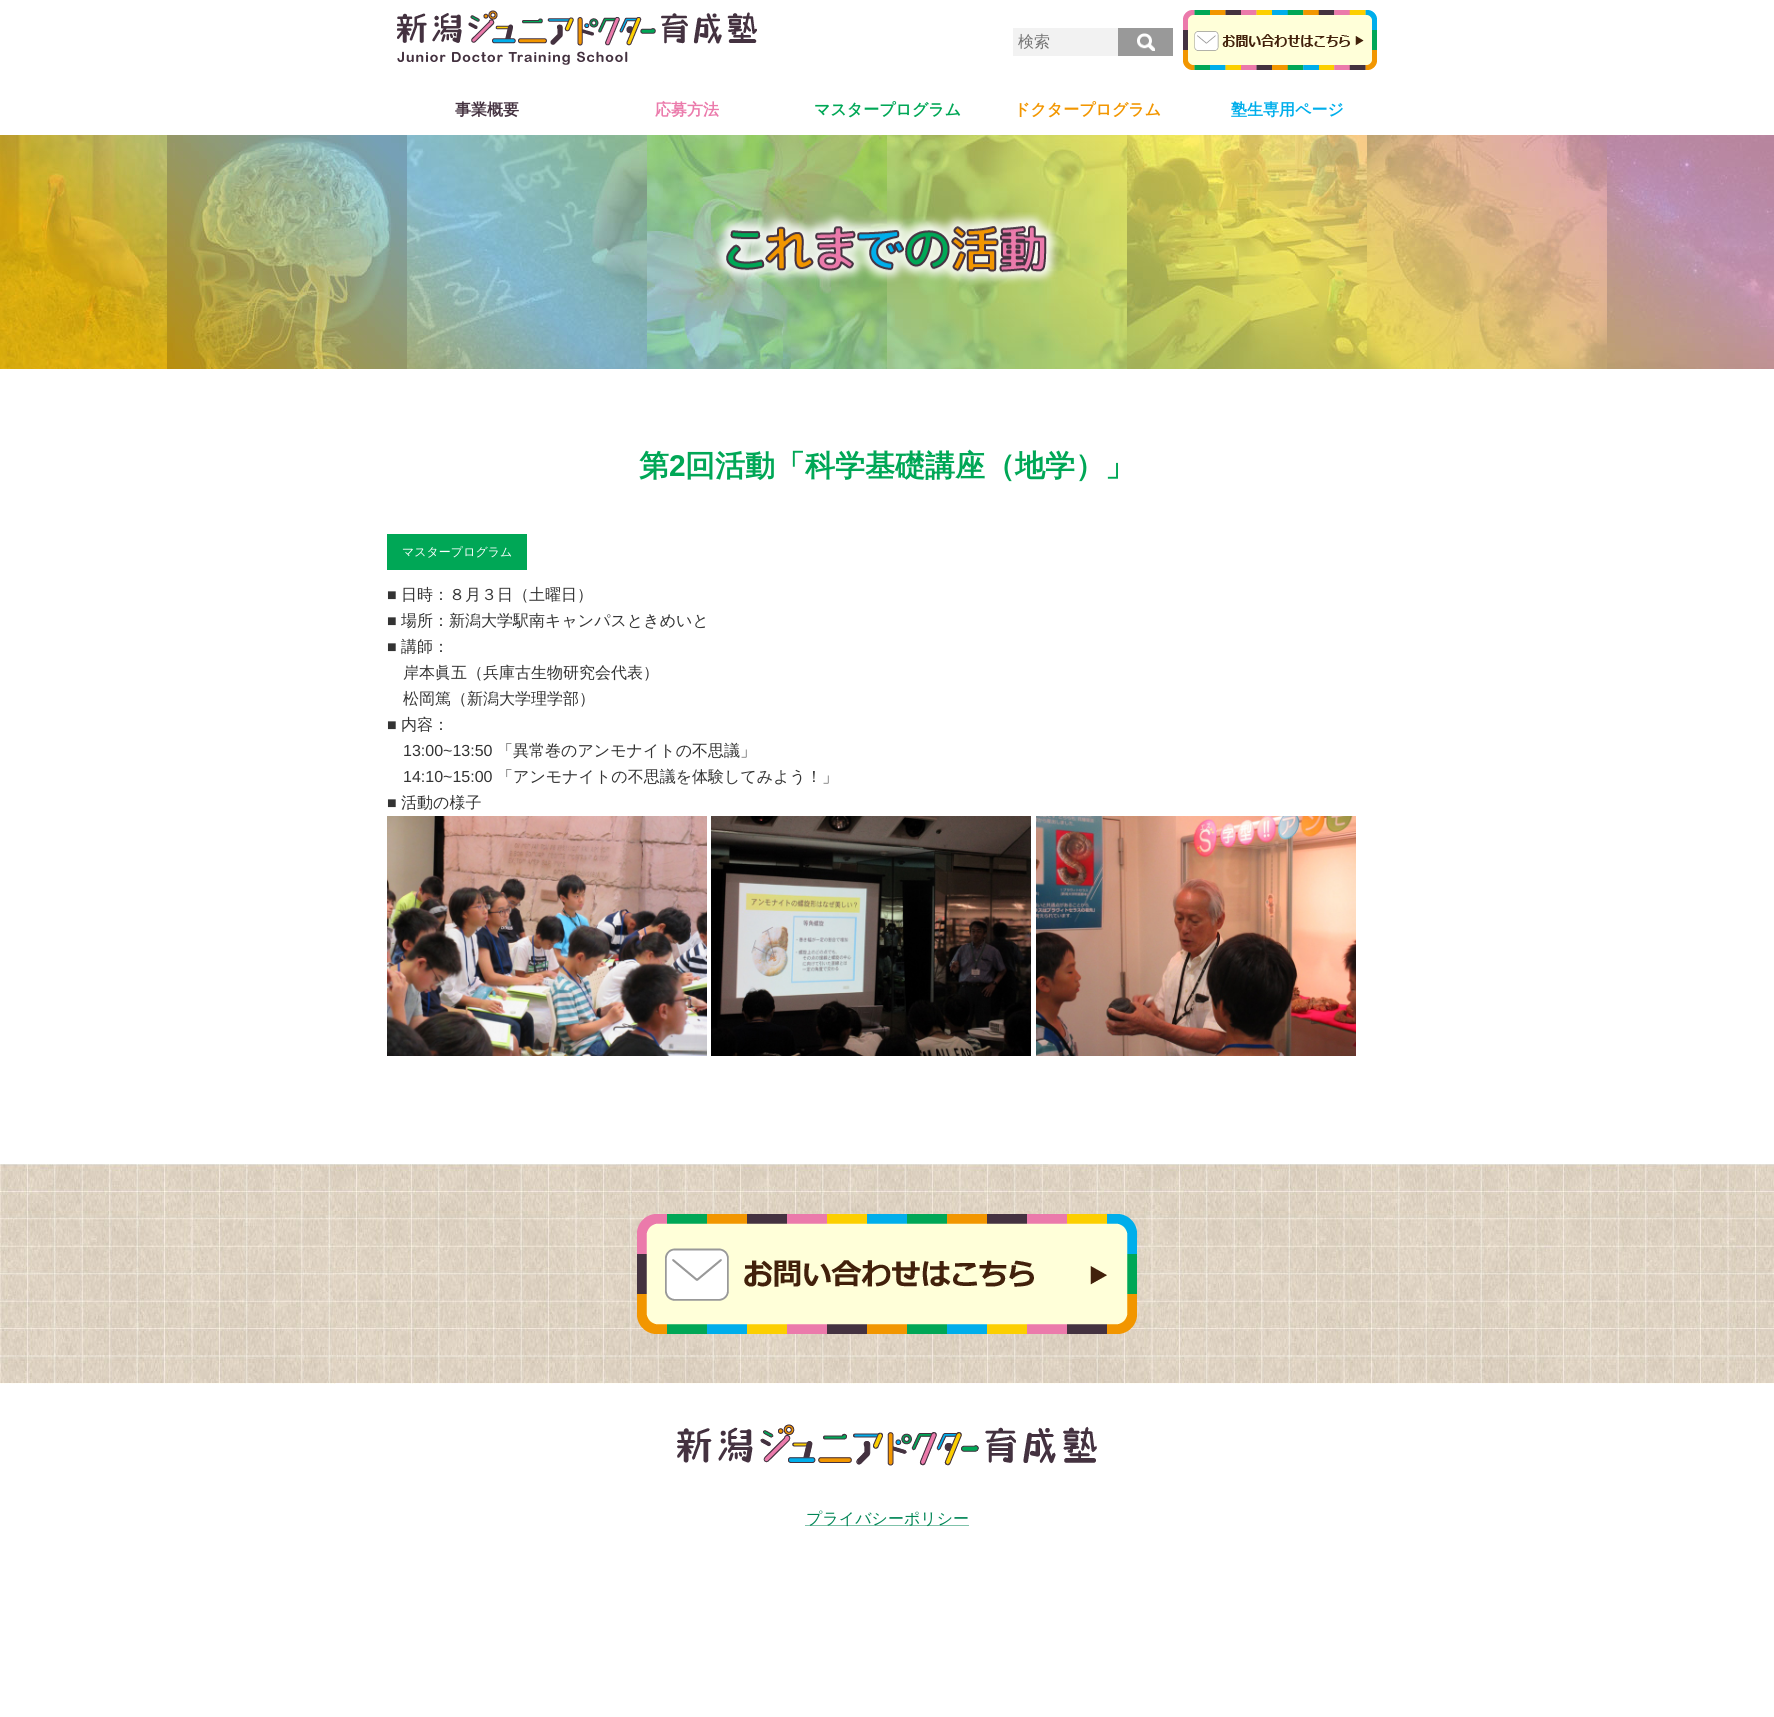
#include <cairo.h>
#include <math.h>
#include <stddef.h>


static void set_color(cairo_t *cr, unsigned color) {
    cairo_set_source_rgb(cr, (color >> 16) / 255.0, (color >> 8 & 255) / 255.0, (color & 255) / 255.0);
}

static void draw_text(cairo_t *cr, double x, double y, const char *s, const char *family, double size, int italic, int bold, unsigned color) {
    cairo_select_font_face(cr, family, italic ? CAIRO_FONT_SLANT_ITALIC : CAIRO_FONT_SLANT_NORMAL,
        bold ? CAIRO_FONT_WEIGHT_BOLD : CAIRO_FONT_WEIGHT_NORMAL);
    cairo_set_font_size(cr, size);
    set_color(cr, color);
    cairo_move_to(cr, x, y);
    cairo_show_text(cr, s);
}

static void fill_rect(cairo_t *cr, double x, double y, double w, double h, unsigned color) {
    set_color(cr, color);
    cairo_rectangle(cr, x, y, w, h);
    cairo_fill(cr);
}

static void draw_image(cairo_t *cr, const char *path, double x, double y, double w, double h) {
    cairo_surface_t *image = cairo_image_surface_create_from_png(path);
    cairo_save(cr);
    cairo_set_source_surface(cr, image, x, y);
    cairo_rectangle(cr, x, y, w, h);
    cairo_fill(cr);
    cairo_restore(cr);
    cairo_surface_destroy(image);
}

int main(void) {
    cairo_surface_t *surface = cairo_image_surface_create(CAIRO_FORMAT_RGB24, 1774, 1717);
    cairo_t *cr = cairo_create(surface);
    cairo_font_options_t *options = cairo_font_options_create();
    cairo_font_options_set_hint_metrics(options, CAIRO_HINT_METRICS_OFF);
    cairo_font_options_set_hint_style(options, CAIRO_HINT_STYLE_NONE);
    cairo_set_font_options(cr, options);
    cairo_set_miter_limit(cr, 4);
    set_color(cr, 0xFFFFFF);
    cairo_paint(cr);
    draw_image(cr, "assets/img1.png", 397, 10, 360, 55);
    fill_rect(cr, 1013, 28, 105, 28, 0xF2F2F2);
    draw_text(cr, 1018, 47, "検索", "WenQuanYi Zen Hei Medium", 16, 0, 0, 0x757575);
    fill_rect(cr, 1118, 28, 55, 28, 0x999999);
    draw_image(cr, "assets/img2.png", 1137, 33, 18, 18);
    draw_image(cr, "assets/img3.png", 1183, 10, 194, 60);
    draw_text(cr, 455, 115, "事業概要", "WenQuanYi Zen Hei", 16, 0, 1, 0x443240);
    draw_text(cr, 655, 115, "応募方法", "WenQuanYi Zen Hei", 16, 0, 1, 0xEB7AAB);
    draw_text(cr, 814, 115, "マスタープログラム", "WenQuanYi Zen Hei", 16, 0, 1, 0x00A756);
    draw_text(cr, 1014, 115, "ドクタープログラム", "WenQuanYi Zen Hei", 16, 0, 1, 0xF29600);
    draw_text(cr, 1231, 115, "塾生専用ページ", "WenQuanYi Zen Hei", 16, 0, 1, 0x00AEEB);
    draw_image(cr, "assets/img4.png", 0, 135, 1774, 234);
    draw_image(cr, "assets/img5.png", 713, 212, 347, 73);
    draw_text(cr, 639, 476, "第", "WenQuanYi Zen Hei", 30, 0, 1, 0x00A756);
    draw_text(cr, 669, 476, "2", "Liberation Sans", 30, 0, 1, 0x00A756);
    draw_text(cr, 685, 476, "回活動「科学基礎講座（地学）」", "WenQuanYi Zen Hei", 30, 0, 1, 0x00A756);
    fill_rect(cr, 387, 534, 140, 36, 0x00A756);
    draw_text(cr, 402, 556, "マスタープログラム", "WenQuanYi Zen Hei Medium", 12, 0, 0, 0xFFFFFF);
    draw_text(cr, 387, 600, "■", "Liberation Sans", 16, 0, 0, 0x333333);
    draw_text(cr, 401, 600, "日時：８月３日（土曜日）", "WenQuanYi Zen Hei Medium", 16, 0, 0, 0x333333);
    draw_text(cr, 387, 626, "■", "Liberation Sans", 16, 0, 0, 0x333333);
    draw_text(cr, 401, 626, "場所：新潟大学駅南キャンパスときめいと", "WenQuanYi Zen Hei Medium", 16, 0, 0, 0x333333);
    draw_text(cr, 387, 652, "■", "Liberation Sans", 16, 0, 0, 0x333333);
    draw_text(cr, 401, 652, "講師：", "WenQuanYi Zen Hei Medium", 16, 0, 0, 0x333333);
    draw_text(cr, 403, 678, "岸本眞五（兵庫古生物研究会代表）", "WenQuanYi Zen Hei Medium", 16, 0, 0, 0x333333);
    draw_text(cr, 403, 704, "松岡篤（新潟大学理学部）", "WenQuanYi Zen Hei Medium", 16, 0, 0, 0x333333);
    draw_text(cr, 387, 730, "■", "Liberation Sans", 16, 0, 0, 0x333333);
    draw_text(cr, 401, 730, "内容：", "WenQuanYi Zen Hei Medium", 16, 0, 0, 0x333333);
    draw_text(cr, 403, 756, "13:00~13:50", "Liberation Sans", 16, 0, 0, 0x333333);
    draw_text(cr, 497, 756, "「異常巻のアンモナイトの不思議」", "WenQuanYi Zen Hei Medium", 16, 0, 0, 0x333333);
    draw_text(cr, 403, 782, "14:10~15:00", "Liberation Sans", 16, 0, 0, 0x333333);
    draw_text(cr, 497, 782, "「アンモナイトの不思議を体験してみよう！」", "WenQuanYi Zen Hei Medium", 16, 0, 0, 0x333333);
    draw_text(cr, 387, 808, "■", "Liberation Sans", 16, 0, 0, 0x333333);
    draw_text(cr, 401, 808, "活動の様子", "WenQuanYi Zen Hei Medium", 16, 0, 0, 0x333333);
    draw_image(cr, "assets/img6.png", 387, 816, 320, 240);
    draw_image(cr, "assets/img7.png", 711, 816, 320, 240);
    draw_image(cr, "assets/img8.png", 1036, 816, 320, 240);
    draw_image(cr, "assets/img9.png", 0, 1164, 1774, 220);
    draw_image(cr, "assets/img10.png", 637, 1214, 500, 120);
    draw_image(cr, "assets/img11.png", 677, 1424, 420, 42);
    cairo_new_path(cr);
    cairo_move_to(cr, 805.5, 1525.5);
    cairo_line_to(cr, 968.5, 1525.5);
    set_color(cr, 0x008555);
    cairo_set_line_width(cr, 1);
    cairo_set_dash(cr, (double[]){1, 1}, 2, 0);
    cairo_stroke(cr);
    draw_text(cr, 806, 1524, "プライバシーポリシー", "WenQuanYi Zen Hei Medium", 16, 0, 0, 0x008555);
    cairo_surface_write_to_png(surface, "output.png");
    cairo_font_options_destroy(options);
    cairo_destroy(cr);
    cairo_surface_destroy(surface);
    return 0;
}
